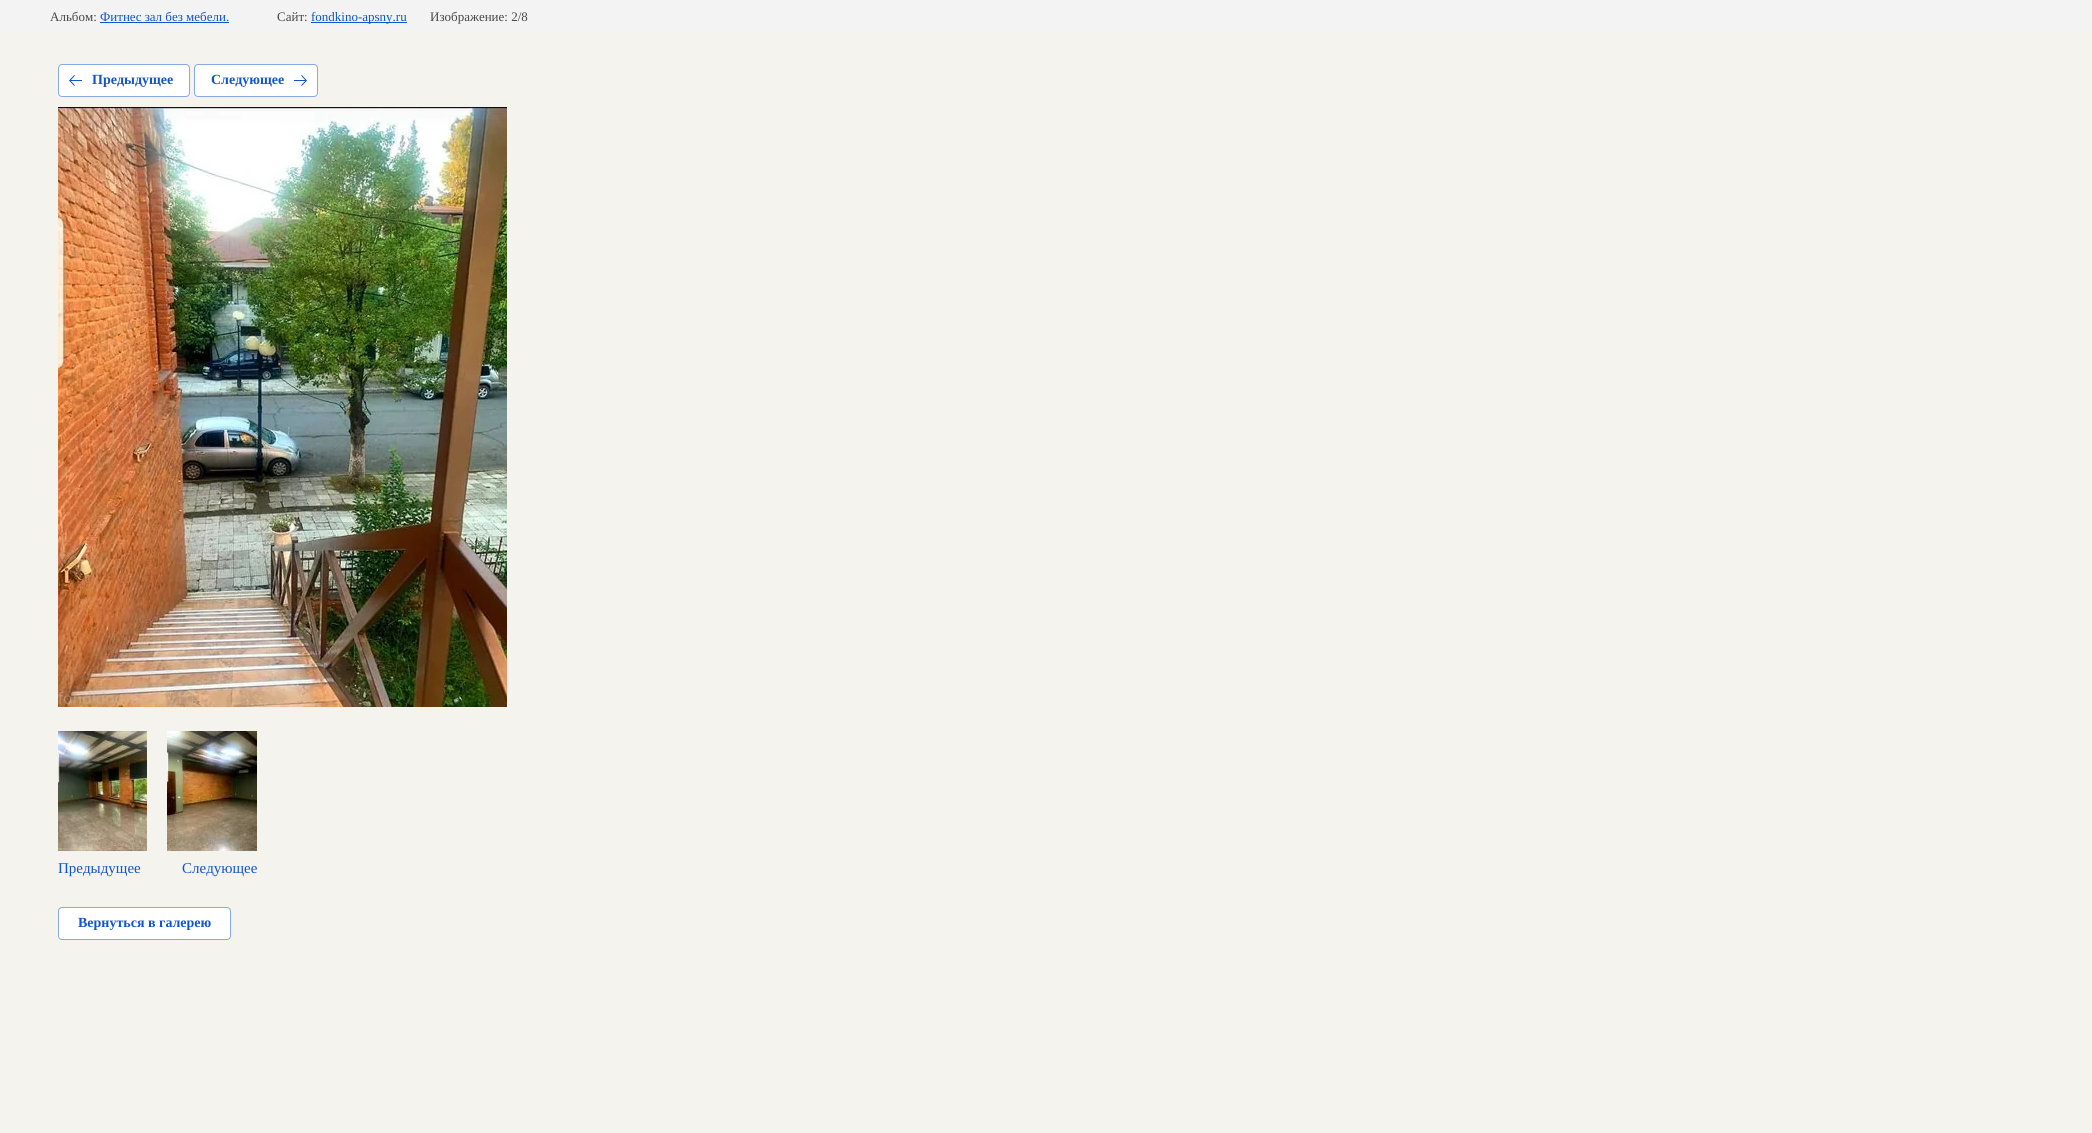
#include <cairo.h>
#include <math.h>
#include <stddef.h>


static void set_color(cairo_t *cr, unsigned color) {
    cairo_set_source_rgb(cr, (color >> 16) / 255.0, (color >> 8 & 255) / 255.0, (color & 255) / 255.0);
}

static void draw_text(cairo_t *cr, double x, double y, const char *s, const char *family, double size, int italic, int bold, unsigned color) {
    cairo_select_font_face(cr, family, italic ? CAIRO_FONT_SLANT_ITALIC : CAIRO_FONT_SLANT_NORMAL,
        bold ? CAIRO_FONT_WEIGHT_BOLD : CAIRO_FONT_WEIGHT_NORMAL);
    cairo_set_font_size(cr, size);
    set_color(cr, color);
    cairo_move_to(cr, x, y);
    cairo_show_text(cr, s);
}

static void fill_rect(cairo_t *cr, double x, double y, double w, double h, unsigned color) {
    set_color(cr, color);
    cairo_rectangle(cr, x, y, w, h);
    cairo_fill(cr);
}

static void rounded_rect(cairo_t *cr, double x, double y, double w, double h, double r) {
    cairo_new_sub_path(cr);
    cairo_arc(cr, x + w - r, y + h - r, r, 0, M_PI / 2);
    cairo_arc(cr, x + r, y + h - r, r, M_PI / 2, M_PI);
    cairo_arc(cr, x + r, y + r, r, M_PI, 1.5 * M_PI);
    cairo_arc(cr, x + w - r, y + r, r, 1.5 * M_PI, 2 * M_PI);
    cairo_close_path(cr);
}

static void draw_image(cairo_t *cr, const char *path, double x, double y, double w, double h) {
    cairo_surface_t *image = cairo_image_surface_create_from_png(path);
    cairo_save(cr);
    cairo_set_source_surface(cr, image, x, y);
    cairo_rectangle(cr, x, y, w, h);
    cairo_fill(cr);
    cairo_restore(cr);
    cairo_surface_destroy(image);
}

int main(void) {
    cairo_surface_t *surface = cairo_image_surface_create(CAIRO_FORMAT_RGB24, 2092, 1133);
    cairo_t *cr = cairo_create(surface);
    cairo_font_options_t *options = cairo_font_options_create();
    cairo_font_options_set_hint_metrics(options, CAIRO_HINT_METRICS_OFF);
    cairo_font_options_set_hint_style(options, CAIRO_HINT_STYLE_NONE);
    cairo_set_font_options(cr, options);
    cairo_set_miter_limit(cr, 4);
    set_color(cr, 0xF5F3ED);
    cairo_paint(cr);
    fill_rect(cr, 0, 0, 2092, 32, 0xF3F3F3);
    draw_text(cr, 50, 21, "Альбом:", "Liberation Serif", 13, 0, 0, 0x484848);
    draw_text(cr, 100, 21, "Фитнес зал без мебели.", "Liberation Serif", 13, 0, 0, 0x1155CC);
    fill_rect(cr, 100, 22, 129, 1, 0x1155CC);
    draw_text(cr, 277, 21, "Сайт:", "Liberation Serif", 13, 0, 0, 0x484848);
    fill_rect(cr, 311, 22, 96, 1, 0x1155CC);
    draw_text(cr, 311, 21, "fondkino-apsny.ru", "Liberation Serif", 13, 0, 0, 0x1155CC);
    draw_text(cr, 430, 21, "Изображение: 2/8", "Liberation Serif", 13, 0, 0, 0x484848);
    set_color(cr, 0xFFFFFF);
    rounded_rect(cr, 58, 64, 132, 33, 4);
    cairo_fill(cr);
    rounded_rect(cr, 58.5, 64.5, 131, 32, 3.5);
    cairo_set_source_rgba(cr, 0.067, 0.333, 0.8, 0.5);
    cairo_set_line_width(cr, 1);
    cairo_stroke(cr);
    draw_image(cr, "assets/img1.png", 69, 75, 13, 11);
    draw_text(cr, 92, 84, "Предыдущее", "Liberation Serif", 14, 0, 1, 0x1155CC);
    set_color(cr, 0xFFFFFF);
    rounded_rect(cr, 194, 64, 124, 33, 4);
    cairo_fill(cr);
    rounded_rect(cr, 194.5, 64.5, 123, 32, 3.5);
    cairo_set_source_rgba(cr, 0.067, 0.333, 0.8, 0.5);
    cairo_stroke(cr);
    draw_text(cr, 211, 84, "Следующее", "Liberation Serif", 14, 0, 1, 0x1155CC);
    draw_image(cr, "assets/img2.png", 294, 75, 13, 11);
    draw_image(cr, "assets/img3.png", 58, 107, 449, 600);
    draw_image(cr, "assets/img4.png", 58, 731, 89, 120);
    draw_text(cr, 58, 873, "Предыдущее", "Liberation Serif", 15, 0, 0, 0x1155CC);
    draw_image(cr, "assets/img5.png", 167, 731, 90, 120);
    draw_text(cr, 182, 873, "Следующее", "Liberation Serif", 15, 0, 0, 0x1155CC);
    set_color(cr, 0xFFFFFF);
    rounded_rect(cr, 58, 907, 173, 33, 4);
    cairo_fill(cr);
    rounded_rect(cr, 58.5, 907.5, 172, 32, 3.5);
    cairo_set_source_rgba(cr, 0.067, 0.333, 0.8, 0.5);
    cairo_stroke(cr);
    draw_text(cr, 78, 927, "Вернуться в галерею", "Liberation Serif", 14, 0, 1, 0x1155CC);
    cairo_surface_write_to_png(surface, "output.png");
    cairo_font_options_destroy(options);
    cairo_destroy(cr);
    cairo_surface_destroy(surface);
    return 0;
}
